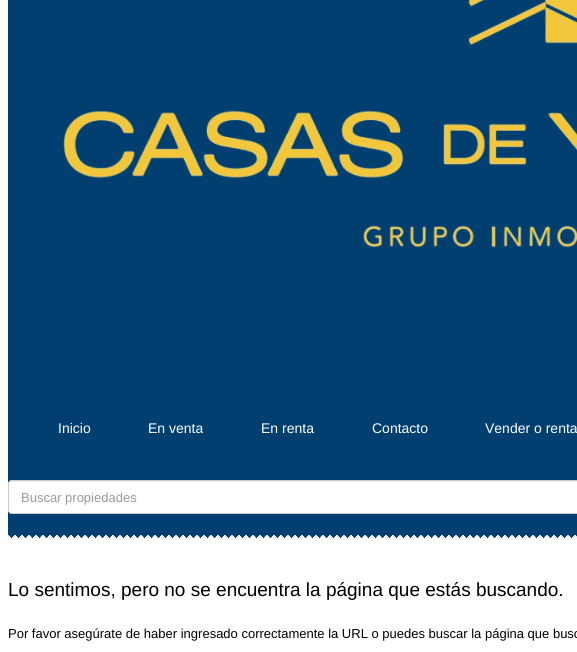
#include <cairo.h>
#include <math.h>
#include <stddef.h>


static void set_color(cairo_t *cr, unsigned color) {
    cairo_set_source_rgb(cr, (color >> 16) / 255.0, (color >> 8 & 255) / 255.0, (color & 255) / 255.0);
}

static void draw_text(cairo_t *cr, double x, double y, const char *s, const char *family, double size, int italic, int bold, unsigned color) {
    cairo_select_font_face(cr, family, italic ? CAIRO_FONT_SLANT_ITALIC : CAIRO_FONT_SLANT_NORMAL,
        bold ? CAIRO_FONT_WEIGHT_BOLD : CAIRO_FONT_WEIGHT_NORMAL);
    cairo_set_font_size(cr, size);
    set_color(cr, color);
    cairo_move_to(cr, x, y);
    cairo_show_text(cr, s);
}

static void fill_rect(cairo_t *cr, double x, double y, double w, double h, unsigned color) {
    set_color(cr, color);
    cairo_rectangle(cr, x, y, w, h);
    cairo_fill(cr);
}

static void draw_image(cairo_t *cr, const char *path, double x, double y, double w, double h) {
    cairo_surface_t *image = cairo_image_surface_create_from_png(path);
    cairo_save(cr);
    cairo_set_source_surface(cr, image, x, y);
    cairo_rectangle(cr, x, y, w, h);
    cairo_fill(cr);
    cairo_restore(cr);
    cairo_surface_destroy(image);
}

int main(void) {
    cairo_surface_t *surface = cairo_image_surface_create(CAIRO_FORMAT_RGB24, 577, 652);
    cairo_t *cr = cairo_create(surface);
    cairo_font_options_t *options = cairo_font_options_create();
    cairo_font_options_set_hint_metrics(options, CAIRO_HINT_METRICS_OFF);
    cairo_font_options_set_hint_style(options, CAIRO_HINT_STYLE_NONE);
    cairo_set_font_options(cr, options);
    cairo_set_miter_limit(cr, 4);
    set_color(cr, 0xFFFFFF);
    cairo_paint(cr);
    fill_rect(cr, 8, 0, 569, 534, 0x003F70);
    draw_image(cr, "assets/img1.png", 63, 0, 514, 248);
    draw_text(cr, 58, 433, "Inicio", "Liberation Sans", 14, 0, 0, 0xFFFFFF);
    draw_text(cr, 148, 433, "En venta", "Liberation Sans", 14, 0, 0, 0xFFFFFF);
    draw_text(cr, 261, 433, "En renta", "Liberation Sans", 14, 0, 0, 0xFFFFFF);
    draw_text(cr, 372, 433, "Contacto", "Liberation Sans", 14, 0, 0, 0xFFFFFF);
    draw_text(cr, 485, 433, "Vender o renta", "Liberation Sans", 14, 0, 0, 0xFFFFFF);
    cairo_new_path(cr);
    cairo_move_to(cr, 12, 480);
    cairo_line_to(cr, 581, 480);
    cairo_line_to(cr, 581, 514);
    cairo_line_to(cr, 12, 514);
    cairo_curve_to(cr, 10, 514, 8, 512, 8, 510);
    cairo_line_to(cr, 8, 484);
    cairo_curve_to(cr, 8, 482, 10, 480, 12, 480);
    cairo_close_path(cr);
    cairo_fill(cr);
    set_color(cr, 0xECECEC);
    cairo_new_path(cr);
    cairo_move_to(cr, 12, 482);
    cairo_line_to(cr, 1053, 482);
    cairo_line_to(cr, 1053, 481);
    cairo_line_to(cr, 12, 481);
    cairo_curve_to(cr, 10, 481, 9, 483, 9, 485);
    cairo_curve_to(cr, 9, 483, 10, 482, 12, 482);
    cairo_close_path(cr);
    cairo_fill(cr);
    cairo_new_path(cr);
    cairo_move_to(cr, 12, 480.5);
    cairo_line_to(cr, 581.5, 480.5);
    cairo_line_to(cr, 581.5, 513.5);
    cairo_line_to(cr, 12, 513.5);
    cairo_curve_to(cr, 10, 513.5, 8.5, 512, 8.5, 510);
    cairo_line_to(cr, 8.5, 484);
    cairo_curve_to(cr, 8.5, 482, 10, 480.5, 12, 480.5);
    cairo_close_path(cr);
    set_color(cr, 0xCCCCCC);
    cairo_set_line_width(cr, 1);
    cairo_stroke(cr);
    draw_text(cr, 21, 502, "Buscar propiedades", "Liberation Sans", 13, 0, 0, 0x999999);
    draw_image(cr, "assets/img2.png", 8, 534, 569, 5);
    draw_text(cr, 8, 596, "Lo sentimos, pero no se encuentra la página que estás buscando.", "Liberation Sans", 19, 0, 0, 0x000000);
    draw_text(cr, 8, 638, "Por favor asegúrate de haber ingresado correctamente la URL o puedes buscar la página que busc", "Liberation Sans", 13, 0, 0, 0x000000);
    cairo_surface_write_to_png(surface, "output.png");
    cairo_font_options_destroy(options);
    cairo_destroy(cr);
    cairo_surface_destroy(surface);
    return 0;
}
